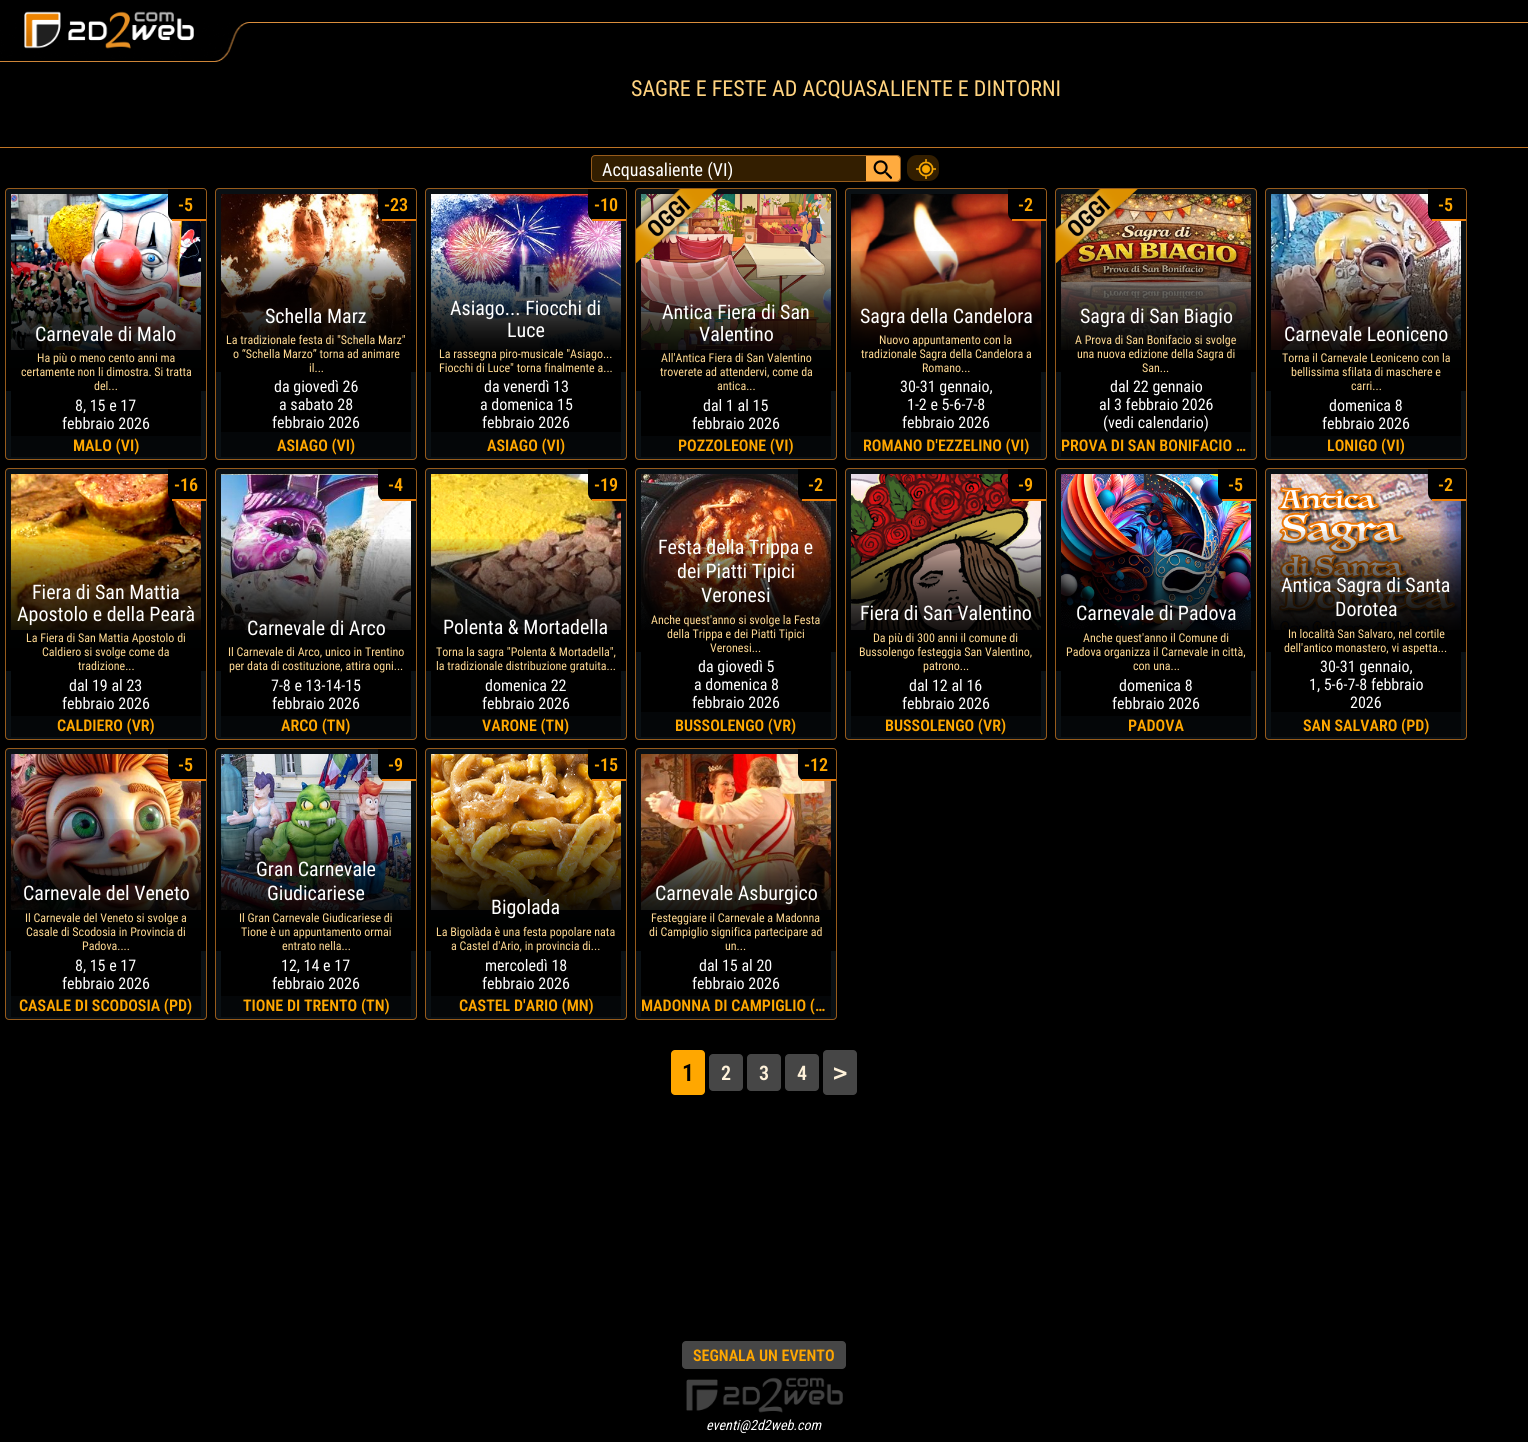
#include <cairo.h>
#include <math.h>
#include <stddef.h>


static void set_color(cairo_t *cr, unsigned color) {
    cairo_set_source_rgb(cr, (color >> 16) / 255.0, (color >> 8 & 255) / 255.0, (color & 255) / 255.0);
}

static void draw_text(cairo_t *cr, double x, double y, const char *s, const char *family, double size, int italic, int bold, unsigned color) {
    cairo_select_font_face(cr, family, italic ? CAIRO_FONT_SLANT_ITALIC : CAIRO_FONT_SLANT_NORMAL,
        bold ? CAIRO_FONT_WEIGHT_BOLD : CAIRO_FONT_WEIGHT_NORMAL);
    cairo_set_font_size(cr, size);
    set_color(cr, color);
    cairo_move_to(cr, x, y);
    cairo_show_text(cr, s);
}

static void fill_rect(cairo_t *cr, double x, double y, double w, double h, unsigned color) {
    set_color(cr, color);
    cairo_rectangle(cr, x, y, w, h);
    cairo_fill(cr);
}

static void rounded_rect(cairo_t *cr, double x, double y, double w, double h, double r) {
    cairo_new_sub_path(cr);
    cairo_arc(cr, x + w - r, y + h - r, r, 0, M_PI / 2);
    cairo_arc(cr, x + r, y + h - r, r, M_PI / 2, M_PI);
    cairo_arc(cr, x + r, y + r, r, M_PI, 1.5 * M_PI);
    cairo_arc(cr, x + w - r, y + r, r, 1.5 * M_PI, 2 * M_PI);
    cairo_close_path(cr);
}

static void draw_image(cairo_t *cr, const char *path, double x, double y, double w, double h) {
    cairo_surface_t *image = cairo_image_surface_create_from_png(path);
    cairo_save(cr);
    cairo_set_source_surface(cr, image, x, y);
    cairo_rectangle(cr, x, y, w, h);
    cairo_fill(cr);
    cairo_restore(cr);
    cairo_surface_destroy(image);
}

int main(void) {
    cairo_surface_t *surface = cairo_image_surface_create(CAIRO_FORMAT_RGB24, 1528, 1442);
    cairo_t *cr = cairo_create(surface);
    cairo_font_options_t *options = cairo_font_options_create();
    cairo_font_options_set_hint_metrics(options, CAIRO_HINT_METRICS_OFF);
    cairo_font_options_set_hint_style(options, CAIRO_HINT_STYLE_NONE);
    cairo_set_font_options(cr, options);
    cairo_set_miter_limit(cr, 4);
    cairo_pattern_t *gradient;
    set_color(cr, 0x000000);
    cairo_paint(cr);
    fill_rect(cr, 249, 22, 1279, 1, 0xDB8E3C);
    draw_image(cr, "assets/img2.png", 0, 22, 249, 40);
    draw_image(cr, "assets/img1.png", 24, 11, 170, 38);
    draw_text(cr, 631, 96, "SAGRE E FESTE AD ACQUASALIENTE E DINTORNI", "Roboto Condensed", 22, 0, 0, 0xFFD380);
    fill_rect(cr, 0, 147, 1528, 1, 0xBF7425);
    set_color(cr, 0x331E00);
    rounded_rect(cr, 591.5, 155.5, 309, 26, 3.5);
    cairo_fill_preserve(cr);
    set_color(cr, 0x975B1B);
    cairo_set_line_width(cr, 1);
    cairo_stroke(cr);
    draw_text(cr, 602, 176, "Acquasaliente (VI)", "Roboto Condensed", 18, 0, 0, 0xFFFFFF);
    set_color(cr, 0xFFAB3F);
    cairo_new_path(cr);
    cairo_move_to(cr, 866, 156);
    cairo_line_to(cr, 897, 156);
    cairo_curve_to(cr, 898.5, 156, 900, 157.5, 900, 159);
    cairo_line_to(cr, 900, 178);
    cairo_curve_to(cr, 900, 179.5, 898.5, 181, 897, 181);
    cairo_line_to(cr, 866, 181);
    cairo_close_path(cr);
    cairo_fill(cr);
    draw_image(cr, "assets/img3.png", 873, 160, 19, 20);
    set_color(cr, 0x331E00);
    rounded_rect(cr, 907, 155, 32, 26, 10);
    cairo_fill(cr);
    draw_image(cr, "assets/img4.png", 916, 159, 20, 20);
    set_color(cr, 0x202020);
    rounded_rect(cr, 5.5, 188.5, 201, 271, 3.5);
    cairo_fill_preserve(cr);
    set_color(cr, 0x975B1B);
    cairo_stroke(cr);
    cairo_save(cr);
    rounded_rect(cr, 6, 189, 200, 270, 3);
    cairo_clip(cr);
    set_color(cr, 0x0A1014);
    rounded_rect(cr, 6, 189, 200, 270, 4);
    cairo_fill(cr);
    cairo_restore(cr);
    draw_image(cr, "assets/img5.png", 11, 194, 190, 156);
    set_color(cr, 0x000000);
    cairo_new_path(cr);
    cairo_move_to(cr, 168, 189);
    cairo_line_to(cr, 203, 189);
    cairo_curve_to(cr, 204.5, 189, 206, 190.5, 206, 192);
    cairo_line_to(cr, 206, 221);
    cairo_line_to(cr, 176, 221);
    cairo_curve_to(cr, 171.5, 221, 168, 217.5, 168, 213);
    cairo_close_path(cr);
    cairo_fill(cr);
    fill_rect(cr, 172, 219, 34, 2, 0xEF7F08);
    draw_text(cr, 178, 211, "-5", "Roboto Condensed SemiBold", 18, 0, 0, 0xFFA700);
    fill_rect(cr, 11, 391, 190, 45, 0x000000);
    draw_text(cr, 75, 411, "8, 15 e 17", "Roboto Condensed", 16, 0, 0, 0xFFFFFF);
    draw_text(cr, 62, 429, "febbraio 2026", "Roboto Condensed", 16, 0, 0, 0xFFFFFF);
    fill_rect(cr, 11, 436, 190, 21, 0x040608);
    draw_text(cr, 73, 451, "MALO (VI)", "Roboto Condensed SemiBold", 16, 0, 0, 0xFFA700);
    gradient = cairo_pattern_create_linear(106, 189, 106, 391);
    cairo_pattern_add_color_stop_rgba(gradient, 0.33, 0, 0, 0, 0);
    cairo_pattern_add_color_stop_rgba(gradient, 1, 0, 0, 0, 1);
    cairo_set_source(cr, gradient);
    cairo_pattern_destroy(gradient);
    cairo_rectangle(cr, 6, 259, 200, 131);
    cairo_fill(cr);
    cairo_rectangle(cr, 6, 259, 200, 132);
    cairo_fill(cr);
    draw_text(cr, 35, 341, "Carnevale di Malo", "Roboto Condensed", 20, 0, 0, 0xFFFFFF);
    draw_text(cr, 37, 362, "Ha più o meno cento anni ma", "Roboto Condensed", 12, 0, 0, 0xFFD992);
    draw_text(cr, 21, 376, "certamente non li dimostra. Si tratta", "Roboto Condensed", 12, 0, 0, 0xFFD992);
    draw_text(cr, 94, 390, "del...", "Roboto Condensed", 12, 0, 0, 0xFFD992);
    set_color(cr, 0x202020);
    rounded_rect(cr, 215.5, 188.5, 201, 271, 3.5);
    cairo_fill_preserve(cr);
    set_color(cr, 0x975B1B);
    cairo_stroke(cr);
    cairo_save(cr);
    rounded_rect(cr, 216, 189, 200, 270, 3);
    cairo_clip(cr);
    set_color(cr, 0x0A1014);
    rounded_rect(cr, 216, 189, 200, 270, 4);
    cairo_fill(cr);
    cairo_restore(cr);
    draw_image(cr, "assets/img6.png", 221, 194, 190, 156);
    set_color(cr, 0x000000);
    cairo_new_path(cr);
    cairo_move_to(cr, 378, 189);
    cairo_line_to(cr, 413, 189);
    cairo_curve_to(cr, 414.5, 189, 416, 190.5, 416, 192);
    cairo_line_to(cr, 416, 221);
    cairo_line_to(cr, 386, 221);
    cairo_curve_to(cr, 381.5, 221, 378, 217.5, 378, 213);
    cairo_close_path(cr);
    cairo_fill(cr);
    fill_rect(cr, 382, 219, 34, 2, 0xEF7F08);
    draw_text(cr, 384, 211, "-23", "Roboto Condensed SemiBold", 18, 0, 0, 0xFFA700);
    fill_rect(cr, 221, 372, 190, 60, 0x000000);
    draw_text(cr, 274, 392, "da giovedì 26", "Roboto Condensed", 16, 0, 0, 0xFFFFFF);
    draw_text(cr, 279, 410, "a sabato 28", "Roboto Condensed", 16, 0, 0, 0xFFFFFF);
    draw_text(cr, 272, 428, "febbraio 2026", "Roboto Condensed", 16, 0, 0, 0xFFFFFF);
    fill_rect(cr, 221, 432, 190, 25, 0x040608);
    draw_text(cr, 277, 451, "ASIAGO (VI)", "Roboto Condensed SemiBold", 16, 0, 0, 0xFFA700);
    gradient = cairo_pattern_create_linear(316, 189, 316, 369);
    cairo_pattern_add_color_stop_rgba(gradient, 0.33, 0, 0, 0, 0);
    cairo_pattern_add_color_stop_rgba(gradient, 1, 0, 0, 0, 1);
    cairo_set_source(cr, gradient);
    cairo_pattern_destroy(gradient);
    cairo_rectangle(cr, 216, 251, 200, 99);
    cairo_fill(cr);
    cairo_rectangle(cr, 216, 251, 200, 99);
    cairo_fill(cr);
    draw_text(cr, 265, 323, "Schella Marz", "Roboto Condensed", 20, 0, 0, 0xFFFFFF);
    draw_text(cr, 226, 344, "La tradizionale festa di \"Schella Marz\"", "Roboto Condensed", 12, 0, 0, 0xFFD992);
    fill_rect(cr, 216, 350, 200, 22, 0x000000);
    draw_text(cr, 233, 358, "o “Schella Marzo” torna ad animare", "Roboto Condensed", 12, 0, 0, 0xFFD992);
    draw_text(cr, 309, 372, "il...", "Roboto Condensed", 12, 0, 0, 0xFFD992);
    set_color(cr, 0x202020);
    rounded_rect(cr, 425.5, 188.5, 201, 271, 3.5);
    cairo_fill_preserve(cr);
    set_color(cr, 0x975B1B);
    cairo_stroke(cr);
    cairo_save(cr);
    rounded_rect(cr, 426, 189, 200, 270, 3);
    cairo_clip(cr);
    set_color(cr, 0x0A1014);
    rounded_rect(cr, 426, 189, 200, 270, 4);
    cairo_fill(cr);
    cairo_restore(cr);
    draw_image(cr, "assets/img7.png", 431, 194, 190, 156);
    set_color(cr, 0x000000);
    cairo_new_path(cr);
    cairo_move_to(cr, 588, 189);
    cairo_line_to(cr, 623, 189);
    cairo_curve_to(cr, 624.5, 189, 626, 190.5, 626, 192);
    cairo_line_to(cr, 626, 221);
    cairo_line_to(cr, 596, 221);
    cairo_curve_to(cr, 591.5, 221, 588, 217.5, 588, 213);
    cairo_close_path(cr);
    cairo_fill(cr);
    fill_rect(cr, 592, 219, 34, 2, 0xEF7F08);
    draw_text(cr, 594, 211, "-10", "Roboto Condensed SemiBold", 18, 0, 0, 0xFFA700);
    fill_rect(cr, 431, 372, 190, 60, 0x000000);
    draw_text(cr, 484, 392, "da venerdì 13", "Roboto Condensed", 16, 0, 0, 0xFFFFFF);
    draw_text(cr, 480, 410, "a domenica 15", "Roboto Condensed", 16, 0, 0, 0xFFFFFF);
    draw_text(cr, 482, 428, "febbraio 2026", "Roboto Condensed", 16, 0, 0, 0xFFFFFF);
    fill_rect(cr, 431, 432, 190, 25, 0x040608);
    draw_text(cr, 487, 451, "ASIAGO (VI)", "Roboto Condensed SemiBold", 16, 0, 0, 0xFFA700);
    gradient = cairo_pattern_create_linear(526, 189, 526, 369);
    cairo_pattern_add_color_stop_rgba(gradient, 0.33, 0, 0, 0, 0);
    cairo_pattern_add_color_stop_rgba(gradient, 1, 0, 0, 0, 1);
    cairo_set_source(cr, gradient);
    cairo_pattern_destroy(gradient);
    cairo_rectangle(cr, 426, 251, 200, 99);
    cairo_fill(cr);
    cairo_rectangle(cr, 426, 251, 200, 99);
    cairo_fill(cr);
    draw_text(cr, 450, 315, "Asiago... Fiocchi di", "Roboto Condensed", 20, 0, 0, 0xFFFFFF);
    draw_text(cr, 507, 337, "Luce", "Roboto Condensed", 20, 0, 0, 0xFFFFFF);
    fill_rect(cr, 426, 350, 200, 22, 0x000000);
    draw_text(cr, 439, 358, "La rassegna piro-musicale \"Asiago...", "Roboto Condensed", 12, 0, 0, 0xFFD992);
    draw_text(cr, 439, 372, "Fiocchi di Luce\" torna finalmente a...", "Roboto Condensed", 12, 0, 0, 0xFFD992);
    set_color(cr, 0x202020);
    rounded_rect(cr, 635.5, 188.5, 201, 271, 3.5);
    cairo_fill_preserve(cr);
    set_color(cr, 0x975B1B);
    cairo_stroke(cr);
    cairo_save(cr);
    rounded_rect(cr, 636, 189, 200, 270, 3);
    cairo_clip(cr);
    set_color(cr, 0x0A1014);
    rounded_rect(cr, 636, 189, 200, 270, 4);
    cairo_fill(cr);
    cairo_restore(cr);
    draw_image(cr, "assets/img9.png", 641, 194, 190, 156);
    gradient = cairo_pattern_create_linear(736, 189, 736, 391);
    cairo_pattern_add_color_stop_rgba(gradient, 0.33, 0, 0, 0, 0);
    cairo_pattern_add_color_stop_rgba(gradient, 1, 0, 0, 0, 1);
    cairo_set_source(cr, gradient);
    cairo_pattern_destroy(gradient);
    cairo_rectangle(cr, 636, 259, 200, 131);
    cairo_fill(cr);
    cairo_rectangle(cr, 636, 259, 200, 132);
    cairo_fill(cr);
    draw_image(cr, "assets/img8.png", 636, 189, 82, 75);
    draw_text(cr, 662, 319, "Antica Fiera di San", "Roboto Condensed", 20, 0, 0, 0xFFFFFF);
    draw_text(cr, 699, 341, "Valentino", "Roboto Condensed", 20, 0, 0, 0xFFFFFF);
    draw_text(cr, 661, 362, "All'Antica Fiera di San Valentino", "Roboto Condensed", 12, 0, 0, 0xFFD992);
    draw_text(cr, 660, 376, "troverete ad attendervi, come da", "Roboto Condensed", 12, 0, 0, 0xFFD992);
    draw_text(cr, 717, 390, "antica...", "Roboto Condensed", 12, 0, 0, 0xFFD992);
    fill_rect(cr, 641, 391, 190, 45, 0x000000);
    draw_text(cr, 703, 411, "dal 1 al 15", "Roboto Condensed", 16, 0, 0, 0xFFFFFF);
    draw_text(cr, 692, 429, "febbraio 2026", "Roboto Condensed", 16, 0, 0, 0xFFFFFF);
    fill_rect(cr, 641, 436, 190, 21, 0x040608);
    draw_text(cr, 678, 451, "POZZOLEONE (VI)", "Roboto Condensed SemiBold", 16, 0, 0, 0xFFA700);
    set_color(cr, 0x202020);
    rounded_rect(cr, 845.5, 188.5, 201, 271, 3.5);
    cairo_fill_preserve(cr);
    set_color(cr, 0x975B1B);
    cairo_stroke(cr);
    cairo_save(cr);
    rounded_rect(cr, 846, 189, 200, 270, 3);
    cairo_clip(cr);
    set_color(cr, 0x0A1014);
    rounded_rect(cr, 846, 189, 200, 270, 4);
    cairo_fill(cr);
    cairo_restore(cr);
    draw_image(cr, "assets/img10.png", 851, 194, 190, 156);
    set_color(cr, 0x000000);
    cairo_new_path(cr);
    cairo_move_to(cr, 1008, 189);
    cairo_line_to(cr, 1043, 189);
    cairo_curve_to(cr, 1044.5, 189, 1046, 190.5, 1046, 192);
    cairo_line_to(cr, 1046, 221);
    cairo_line_to(cr, 1016, 221);
    cairo_curve_to(cr, 1011.5, 221, 1008, 217.5, 1008, 213);
    cairo_close_path(cr);
    cairo_fill(cr);
    fill_rect(cr, 1012, 219, 34, 2, 0xEF7F08);
    draw_text(cr, 1018, 211, "-2", "Roboto Condensed SemiBold", 18, 0, 0, 0xFFA700);
    fill_rect(cr, 851, 372, 190, 60, 0x000000);
    draw_text(cr, 900, 392, "30-31 gennaio,", "Roboto Condensed", 16, 0, 0, 0xFFFFFF);
    draw_text(cr, 907, 410, "1-2 e 5-6-7-8", "Roboto Condensed", 16, 0, 0, 0xFFFFFF);
    draw_text(cr, 902, 428, "febbraio 2026", "Roboto Condensed", 16, 0, 0, 0xFFFFFF);
    fill_rect(cr, 851, 432, 190, 25, 0x040608);
    draw_text(cr, 863, 451, "ROMANO D'EZZELINO (VI)", "Roboto Condensed SemiBold", 16, 0, 0, 0xFFA700);
    gradient = cairo_pattern_create_linear(946, 189, 946, 369);
    cairo_pattern_add_color_stop_rgba(gradient, 0.33, 0, 0, 0, 0);
    cairo_pattern_add_color_stop_rgba(gradient, 1, 0, 0, 0, 1);
    cairo_set_source(cr, gradient);
    cairo_pattern_destroy(gradient);
    cairo_rectangle(cr, 846, 251, 200, 99);
    cairo_fill(cr);
    cairo_rectangle(cr, 846, 251, 200, 99);
    cairo_fill(cr);
    draw_text(cr, 860, 323, "Sagra della Candelora", "Roboto Condensed", 20, 0, 0, 0xFFFFFF);
    draw_text(cr, 879, 344, "Nuovo appuntamento con la", "Roboto Condensed", 12, 0, 0, 0xFFD992);
    fill_rect(cr, 846, 350, 200, 22, 0x000000);
    draw_text(cr, 861, 358, "tradizionale Sagra della Candelora a", "Roboto Condensed", 12, 0, 0, 0xFFD992);
    draw_text(cr, 922, 372, "Romano...", "Roboto Condensed", 12, 0, 0, 0xFFD992);
    set_color(cr, 0x202020);
    rounded_rect(cr, 1055.5, 188.5, 201, 271, 3.5);
    cairo_fill_preserve(cr);
    set_color(cr, 0x975B1B);
    cairo_stroke(cr);
    cairo_save(cr);
    rounded_rect(cr, 1056, 189, 200, 270, 3);
    cairo_clip(cr);
    set_color(cr, 0x0A1014);
    rounded_rect(cr, 1056, 189, 200, 270, 4);
    cairo_fill(cr);
    cairo_restore(cr);
    draw_image(cr, "assets/img12.png", 1061, 194, 190, 156);
    gradient = cairo_pattern_create_linear(1156, 189, 1156, 369);
    cairo_pattern_add_color_stop_rgba(gradient, 0.33, 0, 0, 0, 0);
    cairo_pattern_add_color_stop_rgba(gradient, 1, 0, 0, 0, 1);
    cairo_set_source(cr, gradient);
    cairo_pattern_destroy(gradient);
    cairo_rectangle(cr, 1056, 251, 200, 99);
    cairo_fill(cr);
    cairo_rectangle(cr, 1056, 251, 200, 99);
    cairo_fill(cr);
    draw_image(cr, "assets/img11.png", 1056, 189, 82, 75);
    draw_text(cr, 1080, 323, "Sagra di San Biagio", "Roboto Condensed", 20, 0, 0, 0xFFFFFF);
    draw_text(cr, 1075, 344, "A Prova di San Bonifacio si svolge", "Roboto Condensed", 12, 0, 0, 0xFFD992);
    fill_rect(cr, 1056, 350, 200, 22, 0x000000);
    draw_text(cr, 1077, 358, "una nuova edizione della Sagra di", "Roboto Condensed", 12, 0, 0, 0xFFD992);
    fill_rect(cr, 1061, 372, 190, 60, 0x000000);
    draw_text(cr, 1142, 372, "San...", "Roboto Condensed", 12, 0, 0, 0xFFD992);
    draw_text(cr, 1110, 392, "dal 22 gennaio", "Roboto Condensed", 16, 0, 0, 0xFFFFFF);
    draw_text(cr, 1099, 410, "al 3 febbraio 2026", "Roboto Condensed", 16, 0, 0, 0xFFFFFF);
    draw_text(cr, 1103, 428, "(vedi calendario)", "Roboto Condensed", 16, 0, 0, 0xFFFFFF);
    fill_rect(cr, 1061, 432, 190, 25, 0x040608);
    draw_text(cr, 1061, 451, "PROVA DI SAN BONIFACIO …", "Roboto Condensed SemiBold", 16, 0, 0, 0xFFA700);
    set_color(cr, 0x202020);
    rounded_rect(cr, 1265.5, 188.5, 201, 271, 3.5);
    cairo_fill_preserve(cr);
    set_color(cr, 0x975B1B);
    cairo_stroke(cr);
    cairo_save(cr);
    rounded_rect(cr, 1266, 189, 200, 270, 3);
    cairo_clip(cr);
    set_color(cr, 0x0A1014);
    rounded_rect(cr, 1266, 189, 200, 270, 4);
    cairo_fill(cr);
    cairo_restore(cr);
    draw_image(cr, "assets/img13.png", 1271, 194, 190, 156);
    set_color(cr, 0x000000);
    cairo_new_path(cr);
    cairo_move_to(cr, 1428, 189);
    cairo_line_to(cr, 1463, 189);
    cairo_curve_to(cr, 1464.5, 189, 1466, 190.5, 1466, 192);
    cairo_line_to(cr, 1466, 221);
    cairo_line_to(cr, 1436, 221);
    cairo_curve_to(cr, 1431.5, 221, 1428, 217.5, 1428, 213);
    cairo_close_path(cr);
    cairo_fill(cr);
    fill_rect(cr, 1432, 219, 34, 2, 0xEF7F08);
    draw_text(cr, 1438, 211, "-5", "Roboto Condensed SemiBold", 18, 0, 0, 0xFFA700);
    fill_rect(cr, 1271, 391, 190, 45, 0x000000);
    draw_text(cr, 1329, 411, "domenica 8", "Roboto Condensed", 16, 0, 0, 0xFFFFFF);
    draw_text(cr, 1322, 429, "febbraio 2026", "Roboto Condensed", 16, 0, 0, 0xFFFFFF);
    fill_rect(cr, 1271, 436, 190, 21, 0x040608);
    draw_text(cr, 1327, 451, "LONIGO (VI)", "Roboto Condensed SemiBold", 16, 0, 0, 0xFFA700);
    gradient = cairo_pattern_create_linear(1366, 189, 1366, 391);
    cairo_pattern_add_color_stop_rgba(gradient, 0.33, 0, 0, 0, 0);
    cairo_pattern_add_color_stop_rgba(gradient, 1, 0, 0, 0, 1);
    cairo_set_source(cr, gradient);
    cairo_pattern_destroy(gradient);
    cairo_rectangle(cr, 1266, 259, 200, 131);
    cairo_fill(cr);
    cairo_rectangle(cr, 1266, 259, 200, 132);
    cairo_fill(cr);
    draw_text(cr, 1284, 341, "Carnevale Leoniceno", "Roboto Condensed", 20, 0, 0, 0xFFFFFF);
    draw_text(cr, 1282, 362, "Torna il Carnevale Leoniceno con la", "Roboto Condensed", 12, 0, 0, 0xFFD992);
    draw_text(cr, 1291, 376, "bellissima sfilata di maschere e", "Roboto Condensed", 12, 0, 0, 0xFFD992);
    draw_text(cr, 1351, 390, "carri...", "Roboto Condensed", 12, 0, 0, 0xFFD992);
    set_color(cr, 0x202020);
    rounded_rect(cr, 5.5, 468.5, 201, 271, 3.5);
    cairo_fill_preserve(cr);
    set_color(cr, 0x975B1B);
    cairo_stroke(cr);
    cairo_save(cr);
    rounded_rect(cr, 6, 469, 200, 270, 3);
    cairo_clip(cr);
    set_color(cr, 0x0A1014);
    rounded_rect(cr, 6, 469, 200, 270, 4);
    cairo_fill(cr);
    cairo_restore(cr);
    draw_image(cr, "assets/img14.png", 11, 474, 190, 156);
    set_color(cr, 0x000000);
    cairo_new_path(cr);
    cairo_move_to(cr, 168, 469);
    cairo_line_to(cr, 203, 469);
    cairo_curve_to(cr, 204.5, 469, 206, 470.5, 206, 472);
    cairo_line_to(cr, 206, 501);
    cairo_line_to(cr, 176, 501);
    cairo_curve_to(cr, 171.5, 501, 168, 497.5, 168, 493);
    cairo_close_path(cr);
    cairo_fill(cr);
    fill_rect(cr, 172, 499, 34, 2, 0xEF7F08);
    draw_text(cr, 174, 491, "-16", "Roboto Condensed SemiBold", 18, 0, 0, 0xFFA700);
    fill_rect(cr, 11, 671, 190, 45, 0x000000);
    draw_text(cr, 69, 691, "dal 19 al 23", "Roboto Condensed", 16, 0, 0, 0xFFFFFF);
    draw_text(cr, 62, 709, "febbraio 2026", "Roboto Condensed", 16, 0, 0, 0xFFFFFF);
    fill_rect(cr, 11, 716, 190, 21, 0x040608);
    draw_text(cr, 57, 731, "CALDIERO (VR)", "Roboto Condensed SemiBold", 16, 0, 0, 0xFFA700);
    gradient = cairo_pattern_create_linear(106, 469, 106, 671);
    cairo_pattern_add_color_stop_rgba(gradient, 0.33, 0, 0, 0, 0);
    cairo_pattern_add_color_stop_rgba(gradient, 1, 0, 0, 0, 1);
    cairo_set_source(cr, gradient);
    cairo_pattern_destroy(gradient);
    cairo_rectangle(cr, 6, 539, 200, 131);
    cairo_fill(cr);
    cairo_rectangle(cr, 6, 539, 200, 132);
    cairo_fill(cr);
    draw_text(cr, 32, 599, "Fiera di San Mattia", "Roboto Condensed", 20, 0, 0, 0xFFFFFF);
    draw_text(cr, 17, 621, "Apostolo e della Pearà", "Roboto Condensed", 20, 0, 0, 0xFFFFFF);
    draw_text(cr, 26, 642, "La Fiera di San Mattia Apostolo di", "Roboto Condensed", 12, 0, 0, 0xFFD992);
    draw_text(cr, 42, 656, "Caldiero si svolge come da", "Roboto Condensed", 12, 0, 0, 0xFFD992);
    draw_text(cr, 78, 670, "tradizione...", "Roboto Condensed", 12, 0, 0, 0xFFD992);
    set_color(cr, 0x202020);
    rounded_rect(cr, 215.5, 468.5, 201, 271, 3.5);
    cairo_fill_preserve(cr);
    set_color(cr, 0x975B1B);
    cairo_stroke(cr);
    cairo_save(cr);
    rounded_rect(cr, 216, 469, 200, 270, 3);
    cairo_clip(cr);
    set_color(cr, 0x0A1014);
    rounded_rect(cr, 216, 469, 200, 270, 4);
    cairo_fill(cr);
    cairo_restore(cr);
    draw_image(cr, "assets/img15.png", 221, 474, 190, 156);
    set_color(cr, 0x000000);
    cairo_new_path(cr);
    cairo_move_to(cr, 378, 469);
    cairo_line_to(cr, 413, 469);
    cairo_curve_to(cr, 414.5, 469, 416, 470.5, 416, 472);
    cairo_line_to(cr, 416, 501);
    cairo_line_to(cr, 386, 501);
    cairo_curve_to(cr, 381.5, 501, 378, 497.5, 378, 493);
    cairo_close_path(cr);
    cairo_fill(cr);
    fill_rect(cr, 382, 499, 34, 2, 0xEF7F08);
    draw_text(cr, 388, 491, "-4", "Roboto Condensed SemiBold", 18, 0, 0, 0xFFA700);
    fill_rect(cr, 221, 671, 190, 45, 0x000000);
    draw_text(cr, 271, 691, "7-8 e 13-14-15", "Roboto Condensed", 16, 0, 0, 0xFFFFFF);
    draw_text(cr, 272, 709, "febbraio 2026", "Roboto Condensed", 16, 0, 0, 0xFFFFFF);
    fill_rect(cr, 221, 716, 190, 21, 0x040608);
    draw_text(cr, 281, 731, "ARCO (TN)", "Roboto Condensed SemiBold", 16, 0, 0, 0xFFA700);
    gradient = cairo_pattern_create_linear(316, 469, 316, 671);
    cairo_pattern_add_color_stop_rgba(gradient, 0.33, 0, 0, 0, 0);
    cairo_pattern_add_color_stop_rgba(gradient, 1, 0, 0, 0, 1);
    cairo_set_source(cr, gradient);
    cairo_pattern_destroy(gradient);
    cairo_rectangle(cr, 216, 539, 200, 131);
    cairo_fill(cr);
    cairo_rectangle(cr, 216, 539, 200, 132);
    cairo_fill(cr);
    draw_text(cr, 247, 635, "Carnevale di Arco", "Roboto Condensed", 20, 0, 0, 0xFFFFFF);
    draw_text(cr, 228, 656, "Il Carnevale di Arco, unico in Trentino", "Roboto Condensed", 12, 0, 0, 0xFFD992);
    draw_text(cr, 229, 670, "per data di costituzione, attira ogni...", "Roboto Condensed", 12, 0, 0, 0xFFD992);
    set_color(cr, 0x202020);
    rounded_rect(cr, 425.5, 468.5, 201, 271, 3.5);
    cairo_fill_preserve(cr);
    set_color(cr, 0x975B1B);
    cairo_stroke(cr);
    cairo_save(cr);
    rounded_rect(cr, 426, 469, 200, 270, 3);
    cairo_clip(cr);
    set_color(cr, 0x0A1014);
    rounded_rect(cr, 426, 469, 200, 270, 4);
    cairo_fill(cr);
    cairo_restore(cr);
    draw_image(cr, "assets/img16.png", 431, 474, 190, 156);
    set_color(cr, 0x000000);
    cairo_new_path(cr);
    cairo_move_to(cr, 588, 469);
    cairo_line_to(cr, 623, 469);
    cairo_curve_to(cr, 624.5, 469, 626, 470.5, 626, 472);
    cairo_line_to(cr, 626, 501);
    cairo_line_to(cr, 596, 501);
    cairo_curve_to(cr, 591.5, 501, 588, 497.5, 588, 493);
    cairo_close_path(cr);
    cairo_fill(cr);
    fill_rect(cr, 592, 499, 34, 2, 0xEF7F08);
    draw_text(cr, 594, 491, "-19", "Roboto Condensed SemiBold", 18, 0, 0, 0xFFA700);
    fill_rect(cr, 431, 671, 190, 45, 0x000000);
    draw_text(cr, 485, 691, "domenica 22", "Roboto Condensed", 16, 0, 0, 0xFFFFFF);
    draw_text(cr, 482, 709, "febbraio 2026", "Roboto Condensed", 16, 0, 0, 0xFFFFFF);
    fill_rect(cr, 431, 716, 190, 21, 0x040608);
    draw_text(cr, 482, 731, "VARONE (TN)", "Roboto Condensed SemiBold", 16, 0, 0, 0xFFA700);
    gradient = cairo_pattern_create_linear(526, 469, 526, 671);
    cairo_pattern_add_color_stop_rgba(gradient, 0.33, 0, 0, 0, 0);
    cairo_pattern_add_color_stop_rgba(gradient, 1, 0, 0, 0, 1);
    cairo_set_source(cr, gradient);
    cairo_pattern_destroy(gradient);
    cairo_rectangle(cr, 426, 539, 200, 131);
    cairo_fill(cr);
    cairo_rectangle(cr, 426, 539, 200, 132);
    cairo_fill(cr);
    draw_text(cr, 443, 634, "Polenta & Mortadella", "Roboto Condensed", 20, 0, 0, 0xFFFFFF);
    draw_text(cr, 436, 656, "Torna la sagra \"Polenta & Mortadella\",", "Roboto Condensed", 12, 0, 0, 0xFFD992);
    draw_text(cr, 436, 670, "la tradizionale distribuzione gratuita...", "Roboto Condensed", 12, 0, 0, 0xFFD992);
    set_color(cr, 0x202020);
    rounded_rect(cr, 635.5, 468.5, 201, 271, 3.5);
    cairo_fill_preserve(cr);
    set_color(cr, 0x975B1B);
    cairo_stroke(cr);
    cairo_save(cr);
    rounded_rect(cr, 636, 469, 200, 270, 3);
    cairo_clip(cr);
    set_color(cr, 0x0A1014);
    rounded_rect(cr, 636, 469, 200, 270, 4);
    cairo_fill(cr);
    cairo_restore(cr);
    draw_image(cr, "assets/img17.png", 641, 474, 190, 156);
    set_color(cr, 0x000000);
    cairo_new_path(cr);
    cairo_move_to(cr, 798, 469);
    cairo_line_to(cr, 833, 469);
    cairo_curve_to(cr, 834.5, 469, 836, 470.5, 836, 472);
    cairo_line_to(cr, 836, 501);
    cairo_line_to(cr, 806, 501);
    cairo_curve_to(cr, 801.5, 501, 798, 497.5, 798, 493);
    cairo_close_path(cr);
    cairo_fill(cr);
    fill_rect(cr, 802, 499, 34, 2, 0xEF7F08);
    draw_text(cr, 808, 491, "-2", "Roboto Condensed SemiBold", 18, 0, 0, 0xFFA700);
    fill_rect(cr, 641, 652, 190, 60, 0x000000);
    draw_text(cr, 698, 672, "da giovedì 5", "Roboto Condensed", 16, 0, 0, 0xFFFFFF);
    draw_text(cr, 694, 690, "a domenica 8", "Roboto Condensed", 16, 0, 0, 0xFFFFFF);
    draw_text(cr, 692, 708, "febbraio 2026", "Roboto Condensed", 16, 0, 0, 0xFFFFFF);
    fill_rect(cr, 641, 712, 190, 25, 0x040608);
    draw_text(cr, 675, 731, "BUSSOLENGO (VR)", "Roboto Condensed SemiBold", 16, 0, 0, 0xFFA700);
    gradient = cairo_pattern_create_linear(736, 469, 736, 649);
    cairo_pattern_add_color_stop_rgba(gradient, 0.33, 0, 0, 0, 0);
    cairo_pattern_add_color_stop_rgba(gradient, 1, 0, 0, 0, 1);
    cairo_set_source(cr, gradient);
    cairo_pattern_destroy(gradient);
    cairo_rectangle(cr, 636, 531, 200, 99);
    cairo_fill(cr);
    cairo_rectangle(cr, 636, 531, 200, 99);
    cairo_fill(cr);
    draw_text(cr, 658, 554, "Festa della Trippa e", "Roboto Condensed", 20, 0, 0, 0xFFFFFF);
    draw_text(cr, 677, 578, "dei Piatti Tipici", "Roboto Condensed", 20, 0, 0, 0xFFFFFF);
    draw_text(cr, 701, 602, "Veronesi", "Roboto Condensed", 20, 0, 0, 0xFFFFFF);
    draw_text(cr, 651, 624, "Anche quest'anno si svolge la Festa", "Roboto Condensed", 12, 0, 0, 0xFFD992);
    fill_rect(cr, 636, 630, 200, 22, 0x000000);
    draw_text(cr, 667, 638, "della Trippa e dei Piatti Tipici", "Roboto Condensed", 12, 0, 0, 0xFFD992);
    draw_text(cr, 710, 652, "Veronesi...", "Roboto Condensed", 12, 0, 0, 0xFFD992);
    set_color(cr, 0x202020);
    rounded_rect(cr, 845.5, 468.5, 201, 271, 3.5);
    cairo_fill_preserve(cr);
    set_color(cr, 0x975B1B);
    cairo_stroke(cr);
    cairo_save(cr);
    rounded_rect(cr, 846, 469, 200, 270, 3);
    cairo_clip(cr);
    set_color(cr, 0x0A1014);
    rounded_rect(cr, 846, 469, 200, 270, 4);
    cairo_fill(cr);
    cairo_restore(cr);
    draw_image(cr, "assets/img18.png", 851, 474, 190, 156);
    set_color(cr, 0x000000);
    cairo_new_path(cr);
    cairo_move_to(cr, 1008, 469);
    cairo_line_to(cr, 1043, 469);
    cairo_curve_to(cr, 1044.5, 469, 1046, 470.5, 1046, 472);
    cairo_line_to(cr, 1046, 501);
    cairo_line_to(cr, 1016, 501);
    cairo_curve_to(cr, 1011.5, 501, 1008, 497.5, 1008, 493);
    cairo_close_path(cr);
    cairo_fill(cr);
    fill_rect(cr, 1012, 499, 34, 2, 0xEF7F08);
    draw_text(cr, 1018, 491, "-9", "Roboto Condensed SemiBold", 18, 0, 0, 0xFFA700);
    fill_rect(cr, 851, 671, 190, 45, 0x000000);
    draw_text(cr, 909, 691, "dal 12 al 16", "Roboto Condensed", 16, 0, 0, 0xFFFFFF);
    draw_text(cr, 902, 709, "febbraio 2026", "Roboto Condensed", 16, 0, 0, 0xFFFFFF);
    fill_rect(cr, 851, 716, 190, 21, 0x040608);
    draw_text(cr, 885, 731, "BUSSOLENGO (VR)", "Roboto Condensed SemiBold", 16, 0, 0, 0xFFA700);
    gradient = cairo_pattern_create_linear(946, 469, 946, 671);
    cairo_pattern_add_color_stop_rgba(gradient, 0.33, 0, 0, 0, 0);
    cairo_pattern_add_color_stop_rgba(gradient, 1, 0, 0, 0, 1);
    cairo_set_source(cr, gradient);
    cairo_pattern_destroy(gradient);
    cairo_rectangle(cr, 846, 539, 200, 131);
    cairo_fill(cr);
    cairo_rectangle(cr, 846, 539, 200, 132);
    cairo_fill(cr);
    draw_text(cr, 860, 620, "Fiera di San Valentino", "Roboto Condensed", 20, 0, 0, 0xFFFFFF);
    draw_text(cr, 873, 642, "Da più di 300 anni il comune di", "Roboto Condensed", 12, 0, 0, 0xFFD992);
    draw_text(cr, 859, 656, "Bussolengo festeggia San Valentino,", "Roboto Condensed", 12, 0, 0, 0xFFD992);
    draw_text(cr, 923, 670, "patrono...", "Roboto Condensed", 12, 0, 0, 0xFFD992);
    set_color(cr, 0x202020);
    rounded_rect(cr, 1055.5, 468.5, 201, 271, 3.5);
    cairo_fill_preserve(cr);
    set_color(cr, 0x975B1B);
    cairo_stroke(cr);
    cairo_save(cr);
    rounded_rect(cr, 1056, 469, 200, 270, 3);
    cairo_clip(cr);
    set_color(cr, 0x0A1014);
    rounded_rect(cr, 1056, 469, 200, 270, 4);
    cairo_fill(cr);
    cairo_restore(cr);
    draw_image(cr, "assets/img19.png", 1061, 474, 190, 156);
    set_color(cr, 0x000000);
    cairo_new_path(cr);
    cairo_move_to(cr, 1218, 469);
    cairo_line_to(cr, 1253, 469);
    cairo_curve_to(cr, 1254.5, 469, 1256, 470.5, 1256, 472);
    cairo_line_to(cr, 1256, 501);
    cairo_line_to(cr, 1226, 501);
    cairo_curve_to(cr, 1221.5, 501, 1218, 497.5, 1218, 493);
    cairo_close_path(cr);
    cairo_fill(cr);
    fill_rect(cr, 1222, 499, 34, 2, 0xEF7F08);
    draw_text(cr, 1228, 491, "-5", "Roboto Condensed SemiBold", 18, 0, 0, 0xFFA700);
    fill_rect(cr, 1061, 671, 190, 45, 0x000000);
    draw_text(cr, 1119, 691, "domenica 8", "Roboto Condensed", 16, 0, 0, 0xFFFFFF);
    draw_text(cr, 1112, 709, "febbraio 2026", "Roboto Condensed", 16, 0, 0, 0xFFFFFF);
    fill_rect(cr, 1061, 716, 190, 21, 0x040608);
    draw_text(cr, 1128, 731, "PADOVA", "Roboto Condensed SemiBold", 16, 0, 0, 0xFFA700);
    gradient = cairo_pattern_create_linear(1156, 469, 1156, 671);
    cairo_pattern_add_color_stop_rgba(gradient, 0.33, 0, 0, 0, 0);
    cairo_pattern_add_color_stop_rgba(gradient, 1, 0, 0, 0, 1);
    cairo_set_source(cr, gradient);
    cairo_pattern_destroy(gradient);
    cairo_rectangle(cr, 1056, 539, 200, 131);
    cairo_fill(cr);
    cairo_rectangle(cr, 1056, 539, 200, 132);
    cairo_fill(cr);
    draw_text(cr, 1076, 620, "Carnevale di Padova", "Roboto Condensed", 20, 0, 0, 0xFFFFFF);
    draw_text(cr, 1083, 642, "Anche quest'anno il Comune di", "Roboto Condensed", 12, 0, 0, 0xFFD992);
    draw_text(cr, 1066, 656, "Padova organizza il Carnevale in città,", "Roboto Condensed", 12, 0, 0, 0xFFD992);
    draw_text(cr, 1133, 670, "con una...", "Roboto Condensed", 12, 0, 0, 0xFFD992);
    set_color(cr, 0x202020);
    rounded_rect(cr, 1265.5, 468.5, 201, 271, 3.5);
    cairo_fill_preserve(cr);
    set_color(cr, 0x975B1B);
    cairo_stroke(cr);
    cairo_save(cr);
    rounded_rect(cr, 1266, 469, 200, 270, 3);
    cairo_clip(cr);
    set_color(cr, 0x0A1014);
    rounded_rect(cr, 1266, 469, 200, 270, 4);
    cairo_fill(cr);
    cairo_restore(cr);
    draw_image(cr, "assets/img20.png", 1271, 474, 190, 156);
    set_color(cr, 0x000000);
    cairo_new_path(cr);
    cairo_move_to(cr, 1428, 469);
    cairo_line_to(cr, 1463, 469);
    cairo_curve_to(cr, 1464.5, 469, 1466, 470.5, 1466, 472);
    cairo_line_to(cr, 1466, 501);
    cairo_line_to(cr, 1436, 501);
    cairo_curve_to(cr, 1431.5, 501, 1428, 497.5, 1428, 493);
    cairo_close_path(cr);
    cairo_fill(cr);
    fill_rect(cr, 1432, 499, 34, 2, 0xEF7F08);
    draw_text(cr, 1438, 491, "-2", "Roboto Condensed SemiBold", 18, 0, 0, 0xFFA700);
    fill_rect(cr, 1271, 652, 190, 60, 0x000000);
    draw_text(cr, 1320, 672, "30-31 gennaio,", "Roboto Condensed", 16, 0, 0, 0xFFFFFF);
    draw_text(cr, 1309, 690, "1, 5-6-7-8 febbraio", "Roboto Condensed", 16, 0, 0, 0xFFFFFF);
    draw_text(cr, 1350, 708, "2026", "Roboto Condensed", 16, 0, 0, 0xFFFFFF);
    fill_rect(cr, 1271, 712, 190, 25, 0x040608);
    draw_text(cr, 1303, 731, "SAN SALVARO (PD)", "Roboto Condensed SemiBold", 16, 0, 0, 0xFFA700);
    gradient = cairo_pattern_create_linear(1366, 469, 1366, 649);
    cairo_pattern_add_color_stop_rgba(gradient, 0.33, 0, 0, 0, 0);
    cairo_pattern_add_color_stop_rgba(gradient, 1, 0, 0, 0, 1);
    cairo_set_source(cr, gradient);
    cairo_pattern_destroy(gradient);
    cairo_rectangle(cr, 1266, 531, 200, 99);
    cairo_fill(cr);
    cairo_rectangle(cr, 1266, 531, 200, 99);
    cairo_fill(cr);
    draw_text(cr, 1281, 592, "Antica Sagra di Santa", "Roboto Condensed", 20, 0, 0, 0xFFFFFF);
    draw_text(cr, 1335, 616, "Dorotea", "Roboto Condensed", 20, 0, 0, 0xFFFFFF);
    fill_rect(cr, 1266, 630, 200, 22, 0x000000);
    draw_text(cr, 1288, 638, "In località San Salvaro, nel cortile", "Roboto Condensed", 12, 0, 0, 0xFFD992);
    draw_text(cr, 1284, 652, "dell'antico monastero, vi aspetta...", "Roboto Condensed", 12, 0, 0, 0xFFD992);
    set_color(cr, 0x202020);
    rounded_rect(cr, 5.5, 748.5, 201, 271, 3.5);
    cairo_fill_preserve(cr);
    set_color(cr, 0x975B1B);
    cairo_stroke(cr);
    cairo_save(cr);
    rounded_rect(cr, 6, 749, 200, 270, 3);
    cairo_clip(cr);
    set_color(cr, 0x0A1014);
    rounded_rect(cr, 6, 749, 200, 270, 4);
    cairo_fill(cr);
    cairo_restore(cr);
    draw_image(cr, "assets/img21.png", 11, 754, 190, 156);
    set_color(cr, 0x000000);
    cairo_new_path(cr);
    cairo_move_to(cr, 168, 749);
    cairo_line_to(cr, 203, 749);
    cairo_curve_to(cr, 204.5, 749, 206, 750.5, 206, 752);
    cairo_line_to(cr, 206, 781);
    cairo_line_to(cr, 176, 781);
    cairo_curve_to(cr, 171.5, 781, 168, 777.5, 168, 773);
    cairo_close_path(cr);
    cairo_fill(cr);
    fill_rect(cr, 172, 779, 34, 2, 0xEF7F08);
    draw_text(cr, 178, 771, "-5", "Roboto Condensed SemiBold", 18, 0, 0, 0xFFA700);
    fill_rect(cr, 11, 951, 190, 45, 0x000000);
    draw_text(cr, 75, 971, "8, 15 e 17", "Roboto Condensed", 16, 0, 0, 0xFFFFFF);
    draw_text(cr, 62, 989, "febbraio 2026", "Roboto Condensed", 16, 0, 0, 0xFFFFFF);
    fill_rect(cr, 11, 996, 190, 21, 0x040608);
    draw_text(cr, 19, 1011, "CASALE DI SCODOSIA (PD)", "Roboto Condensed SemiBold", 16, 0, 0, 0xFFA700);
    gradient = cairo_pattern_create_linear(106, 749, 106, 951);
    cairo_pattern_add_color_stop_rgba(gradient, 0.33, 0, 0, 0, 0);
    cairo_pattern_add_color_stop_rgba(gradient, 1, 0, 0, 0, 1);
    cairo_set_source(cr, gradient);
    cairo_pattern_destroy(gradient);
    cairo_rectangle(cr, 6, 819, 200, 131);
    cairo_fill(cr);
    cairo_rectangle(cr, 6, 819, 200, 132);
    cairo_fill(cr);
    draw_text(cr, 23, 900, "Carnevale del Veneto", "Roboto Condensed", 20, 0, 0, 0xFFFFFF);
    draw_text(cr, 25, 922, "Il Carnevale del Veneto si svolge a", "Roboto Condensed", 12, 0, 0, 0xFFD992);
    draw_text(cr, 26, 936, "Casale di Scodosia in Provincia di", "Roboto Condensed", 12, 0, 0, 0xFFD992);
    draw_text(cr, 82, 950, "Padova....", "Roboto Condensed", 12, 0, 0, 0xFFD992);
    set_color(cr, 0x202020);
    rounded_rect(cr, 215.5, 748.5, 201, 271, 3.5);
    cairo_fill_preserve(cr);
    set_color(cr, 0x975B1B);
    cairo_stroke(cr);
    cairo_save(cr);
    rounded_rect(cr, 216, 749, 200, 270, 3);
    cairo_clip(cr);
    set_color(cr, 0x0A1014);
    rounded_rect(cr, 216, 749, 200, 270, 4);
    cairo_fill(cr);
    cairo_restore(cr);
    draw_image(cr, "assets/img22.png", 221, 754, 190, 156);
    set_color(cr, 0x000000);
    cairo_new_path(cr);
    cairo_move_to(cr, 378, 749);
    cairo_line_to(cr, 413, 749);
    cairo_curve_to(cr, 414.5, 749, 416, 750.5, 416, 752);
    cairo_line_to(cr, 416, 781);
    cairo_line_to(cr, 386, 781);
    cairo_curve_to(cr, 381.5, 781, 378, 777.5, 378, 773);
    cairo_close_path(cr);
    cairo_fill(cr);
    fill_rect(cr, 382, 779, 34, 2, 0xEF7F08);
    draw_text(cr, 388, 771, "-9", "Roboto Condensed SemiBold", 18, 0, 0, 0xFFA700);
    fill_rect(cr, 221, 951, 190, 45, 0x000000);
    draw_text(cr, 281, 971, "12, 14 e 17", "Roboto Condensed", 16, 0, 0, 0xFFFFFF);
    draw_text(cr, 272, 989, "febbraio 2026", "Roboto Condensed", 16, 0, 0, 0xFFFFFF);
    fill_rect(cr, 221, 996, 190, 21, 0x040608);
    draw_text(cr, 243, 1011, "TIONE DI TRENTO (TN)", "Roboto Condensed SemiBold", 16, 0, 0, 0xFFA700);
    gradient = cairo_pattern_create_linear(316, 749, 316, 951);
    cairo_pattern_add_color_stop_rgba(gradient, 0.33, 0, 0, 0, 0);
    cairo_pattern_add_color_stop_rgba(gradient, 1, 0, 0, 0, 1);
    cairo_set_source(cr, gradient);
    cairo_pattern_destroy(gradient);
    cairo_rectangle(cr, 216, 819, 200, 131);
    cairo_fill(cr);
    cairo_rectangle(cr, 216, 819, 200, 132);
    cairo_fill(cr);
    draw_text(cr, 256, 876, "Gran Carnevale", "Roboto Condensed", 20, 0, 0, 0xFFFFFF);
    draw_text(cr, 267, 900, "Giudicariese", "Roboto Condensed", 20, 0, 0, 0xFFFFFF);
    draw_text(cr, 239, 922, "Il Gran Carnevale Giudicariese di", "Roboto Condensed", 12, 0, 0, 0xFFD992);
    draw_text(cr, 241, 936, "Tione è un appuntamento ormai", "Roboto Condensed", 12, 0, 0, 0xFFD992);
    draw_text(cr, 282, 950, "entrato nella...", "Roboto Condensed", 12, 0, 0, 0xFFD992);
    set_color(cr, 0x202020);
    rounded_rect(cr, 425.5, 748.5, 201, 271, 3.5);
    cairo_fill_preserve(cr);
    set_color(cr, 0x975B1B);
    cairo_stroke(cr);
    cairo_save(cr);
    rounded_rect(cr, 426, 749, 200, 270, 3);
    cairo_clip(cr);
    set_color(cr, 0x0A1014);
    rounded_rect(cr, 426, 749, 200, 270, 4);
    cairo_fill(cr);
    cairo_restore(cr);
    draw_image(cr, "assets/img23.png", 431, 754, 190, 156);
    set_color(cr, 0x000000);
    cairo_new_path(cr);
    cairo_move_to(cr, 588, 749);
    cairo_line_to(cr, 623, 749);
    cairo_curve_to(cr, 624.5, 749, 626, 750.5, 626, 752);
    cairo_line_to(cr, 626, 781);
    cairo_line_to(cr, 596, 781);
    cairo_curve_to(cr, 591.5, 781, 588, 777.5, 588, 773);
    cairo_close_path(cr);
    cairo_fill(cr);
    fill_rect(cr, 592, 779, 34, 2, 0xEF7F08);
    draw_text(cr, 594, 771, "-15", "Roboto Condensed SemiBold", 18, 0, 0, 0xFFA700);
    fill_rect(cr, 431, 951, 190, 45, 0x000000);
    draw_text(cr, 485, 971, "mercoledì 18", "Roboto Condensed", 16, 0, 0, 0xFFFFFF);
    draw_text(cr, 482, 989, "febbraio 2026", "Roboto Condensed", 16, 0, 0, 0xFFFFFF);
    fill_rect(cr, 431, 996, 190, 21, 0x040608);
    draw_text(cr, 459, 1011, "CASTEL D'ARIO (MN)", "Roboto Condensed SemiBold", 16, 0, 0, 0xFFA700);
    gradient = cairo_pattern_create_linear(526, 749, 526, 951);
    cairo_pattern_add_color_stop_rgba(gradient, 0.33, 0, 0, 0, 0);
    cairo_pattern_add_color_stop_rgba(gradient, 1, 0, 0, 0, 1);
    cairo_set_source(cr, gradient);
    cairo_pattern_destroy(gradient);
    cairo_rectangle(cr, 426, 819, 200, 131);
    cairo_fill(cr);
    cairo_rectangle(cr, 426, 819, 200, 132);
    cairo_fill(cr);
    draw_text(cr, 491, 914, "Bigolada", "Roboto Condensed", 20, 0, 0, 0xFFFFFF);
    draw_text(cr, 436, 936, "La Bigolàda è una festa popolare nata", "Roboto Condensed", 12, 0, 0, 0xFFD992);
    draw_text(cr, 451, 950, "a Castel d'Ario, in provincia di...", "Roboto Condensed", 12, 0, 0, 0xFFD992);
    set_color(cr, 0x202020);
    rounded_rect(cr, 635.5, 748.5, 201, 271, 3.5);
    cairo_fill_preserve(cr);
    set_color(cr, 0x975B1B);
    cairo_stroke(cr);
    cairo_save(cr);
    rounded_rect(cr, 636, 749, 200, 270, 3);
    cairo_clip(cr);
    set_color(cr, 0x0A1014);
    rounded_rect(cr, 636, 749, 200, 270, 4);
    cairo_fill(cr);
    cairo_restore(cr);
    draw_image(cr, "assets/img24.png", 641, 754, 190, 156);
    set_color(cr, 0x000000);
    cairo_new_path(cr);
    cairo_move_to(cr, 798, 749);
    cairo_line_to(cr, 833, 749);
    cairo_curve_to(cr, 834.5, 749, 836, 750.5, 836, 752);
    cairo_line_to(cr, 836, 781);
    cairo_line_to(cr, 806, 781);
    cairo_curve_to(cr, 801.5, 781, 798, 777.5, 798, 773);
    cairo_close_path(cr);
    cairo_fill(cr);
    fill_rect(cr, 802, 779, 34, 2, 0xEF7F08);
    draw_text(cr, 804, 771, "-12", "Roboto Condensed SemiBold", 18, 0, 0, 0xFFA700);
    fill_rect(cr, 641, 951, 190, 45, 0x000000);
    draw_text(cr, 699, 971, "dal 15 al 20", "Roboto Condensed", 16, 0, 0, 0xFFFFFF);
    draw_text(cr, 692, 989, "febbraio 2026", "Roboto Condensed", 16, 0, 0, 0xFFFFFF);
    fill_rect(cr, 641, 996, 190, 21, 0x040608);
    draw_text(cr, 641, 1011, "MADONNA DI CAMPIGLIO (…", "Roboto Condensed SemiBold", 16, 0, 0, 0xFFA700);
    gradient = cairo_pattern_create_linear(736, 749, 736, 951);
    cairo_pattern_add_color_stop_rgba(gradient, 0.33, 0, 0, 0, 0);
    cairo_pattern_add_color_stop_rgba(gradient, 1, 0, 0, 0, 1);
    cairo_set_source(cr, gradient);
    cairo_pattern_destroy(gradient);
    cairo_rectangle(cr, 636, 819, 200, 131);
    cairo_fill(cr);
    cairo_rectangle(cr, 636, 819, 200, 132);
    cairo_fill(cr);
    draw_text(cr, 655, 900, "Carnevale Asburgico", "Roboto Condensed", 20, 0, 0, 0xFFFFFF);
    draw_text(cr, 651, 922, "Festeggiare il Carnevale a Madonna", "Roboto Condensed", 12, 0, 0, 0xFFD992);
    draw_text(cr, 649, 936, "di Campiglio significa partecipare ad", "Roboto Condensed", 12, 0, 0, 0xFFD992);
    draw_text(cr, 725, 950, "un...", "Roboto Condensed", 12, 0, 0, 0xFFD992);
    set_color(cr, 0xFFA700);
    rounded_rect(cr, 671, 1050, 34, 45, 4);
    cairo_fill(cr);
    draw_text(cr, 682, 1081, "1", "Roboto Condensed SemiBold", 24, 0, 0, 0x000000);
    set_color(cr, 0x464646);
    rounded_rect(cr, 709, 1054, 34, 37, 4);
    cairo_fill(cr);
    draw_text(cr, 721, 1080, "2", "Roboto Condensed SemiBold", 20, 0, 0, 0xFFF2DA);
    set_color(cr, 0x464646);
    rounded_rect(cr, 747, 1054, 34, 37, 4);
    cairo_fill(cr);
    draw_text(cr, 759, 1080, "3", "Roboto Condensed SemiBold", 20, 0, 0, 0xFFF2DA);
    set_color(cr, 0x464646);
    rounded_rect(cr, 785, 1054, 34, 37, 4);
    cairo_fill(cr);
    draw_text(cr, 797, 1080, "4", "Roboto Condensed SemiBold", 20, 0, 0, 0xFFF2DA);
    set_color(cr, 0x464646);
    rounded_rect(cr, 823, 1050, 34, 45, 4);
    cairo_fill(cr);
    draw_text(cr, 833, 1081, ">", "DejaVu Sans Mono", 24, 0, 1, 0xFFF2DA);
    set_color(cr, 0x464646);
    rounded_rect(cr, 682, 1341, 164, 28, 4);
    cairo_fill(cr);
    draw_text(cr, 693, 1361, "SEGNALA UN EVENTO", "Roboto Condensed SemiBold", 16, 0, 0, 0xFFA700);
    draw_image(cr, "assets/img25.png", 686, 1377, 157, 36);
    draw_text(cr, 706, 1430, "eventi@2d2web.com", "Roboto Condensed", 14, 1, 0, 0xFFFFFF);
    cairo_surface_write_to_png(surface, "output.png");
    cairo_font_options_destroy(options);
    cairo_destroy(cr);
    cairo_surface_destroy(surface);
    return 0;
}
